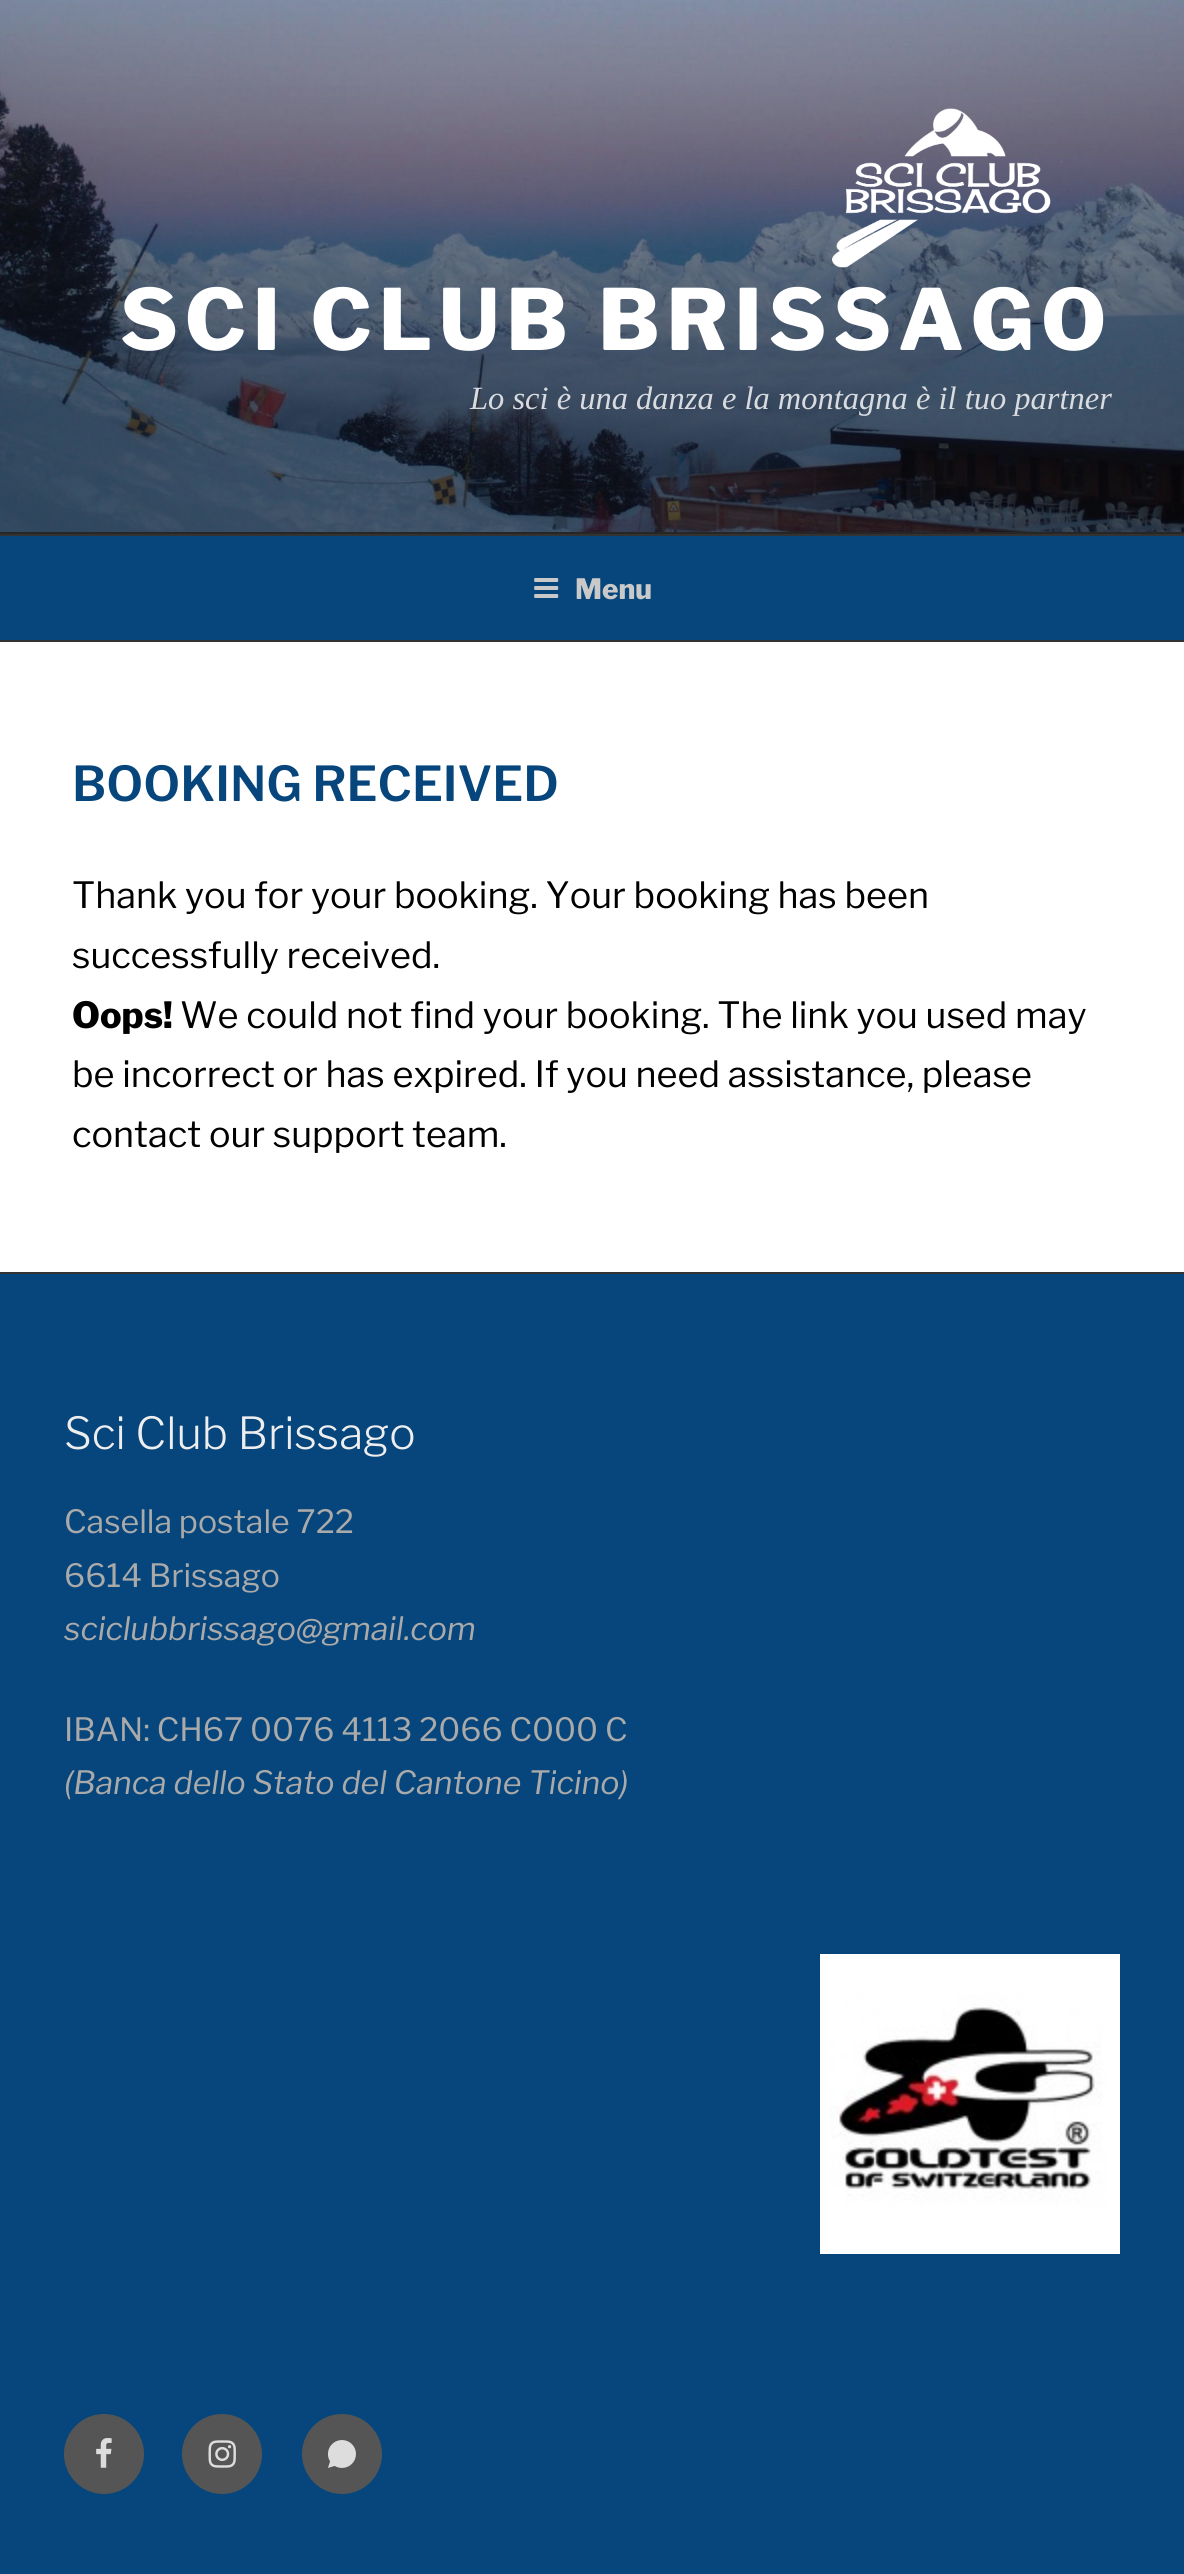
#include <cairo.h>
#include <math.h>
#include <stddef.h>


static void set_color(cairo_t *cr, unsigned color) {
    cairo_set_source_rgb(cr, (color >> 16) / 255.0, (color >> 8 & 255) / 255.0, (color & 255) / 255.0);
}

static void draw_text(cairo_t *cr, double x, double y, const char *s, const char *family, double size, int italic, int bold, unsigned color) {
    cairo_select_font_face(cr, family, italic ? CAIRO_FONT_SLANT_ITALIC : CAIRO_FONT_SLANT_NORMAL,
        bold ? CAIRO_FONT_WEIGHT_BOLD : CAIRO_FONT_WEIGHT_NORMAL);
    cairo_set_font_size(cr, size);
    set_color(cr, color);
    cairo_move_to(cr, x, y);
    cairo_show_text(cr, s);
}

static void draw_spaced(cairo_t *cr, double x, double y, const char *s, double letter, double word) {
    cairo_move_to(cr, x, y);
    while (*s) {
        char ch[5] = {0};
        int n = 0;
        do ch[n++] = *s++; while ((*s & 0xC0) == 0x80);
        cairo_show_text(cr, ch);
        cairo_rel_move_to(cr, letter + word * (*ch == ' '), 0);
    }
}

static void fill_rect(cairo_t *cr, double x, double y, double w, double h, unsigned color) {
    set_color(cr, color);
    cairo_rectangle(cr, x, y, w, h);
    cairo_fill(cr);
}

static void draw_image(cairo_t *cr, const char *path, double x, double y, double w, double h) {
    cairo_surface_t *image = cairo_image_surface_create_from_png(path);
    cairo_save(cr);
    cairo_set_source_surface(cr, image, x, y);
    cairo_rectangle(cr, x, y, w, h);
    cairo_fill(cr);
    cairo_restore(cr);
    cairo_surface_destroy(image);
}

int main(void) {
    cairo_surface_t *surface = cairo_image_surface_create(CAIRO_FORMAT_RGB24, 1184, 2574);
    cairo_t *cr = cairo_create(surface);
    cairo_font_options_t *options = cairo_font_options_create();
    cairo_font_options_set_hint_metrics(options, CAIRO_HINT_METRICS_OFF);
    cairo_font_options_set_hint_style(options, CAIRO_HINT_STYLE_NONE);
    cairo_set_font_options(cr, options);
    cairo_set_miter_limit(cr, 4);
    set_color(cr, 0xFFFFFF);
    cairo_paint(cr);
    fill_rect(cr, 0, 532, 1184, 2, 0x262626);
    draw_image(cr, "assets/img1.png", 0, 0, 1184, 532);
    draw_image(cr, "assets/img2.png", 832, 108, 231, 160);
    cairo_select_font_face(cr, "Libre Franklin ExtraBold", CAIRO_FONT_SLANT_NORMAL, CAIRO_FONT_WEIGHT_NORMAL);
    cairo_set_font_size(cr, 84);
    set_color(cr, 0xFFFFFF);
    draw_spaced(cr, 120, 350, "SCI CLUB BRISSAGO", 6.75, 0);
    draw_text(cr, 470, 409, "Lo sci è una danza e la montagna è il tuo partner", "Liberation Serif", 32.5, 1, 0, 0xD8DBDF);
    fill_rect(cr, 0, 536, 1184, 104, 0x06467C);
    fill_rect(cr, 0, 534, 1184, 2, 0x333333);
    fill_rect(cr, 0, 640, 1184, 2, 0x333333);
    draw_image(cr, "assets/img3.png", 534, 578, 25, 20);
    draw_text(cr, 575, 599, "Menu", "Libre Franklin ExtraBold", 28, 0, 0, 0xC9C9C9);
    draw_text(cr, 72, 801, "BOOKING RECEIVED", "Libre Franklin SemiBold", 48, 0, 0, 0x06467C);
    draw_text(cr, 72, 908, "Thank you for your booking. Your booking has been", "Libre Franklin", 36, 0, 0, 0x000000);
    draw_text(cr, 72, 968, "successfully received.", "Libre Franklin", 36, 0, 0, 0x000000);
    draw_text(cr, 72, 1028, "Oops!", "Libre Franklin ExtraBold", 36, 0, 0, 0x000000);
    draw_text(cr, 180, 1028, "We could not find your booking. The link you used may", "Libre Franklin", 36, 0, 0, 0x000000);
    draw_text(cr, 72, 1087, "be incorrect or has expired. If you need assistance, please", "Libre Franklin", 36, 0, 0, 0x000000);
    draw_text(cr, 72, 1147, "contact our support team.", "Libre Franklin", 36, 0, 0, 0x000000);
    fill_rect(cr, 0, 1274, 1184, 1300, 0x06467C);
    fill_rect(cr, 0, 1272, 1184, 2, 0x333333);
    draw_text(cr, 64, 1449, "Sci Club Brissago", "Libre Franklin Light", 44, 0, 0, 0xEEEEEE);
    draw_text(cr, 64, 1533, "Casella postale 722", "Libre Franklin", 32, 0, 0, 0xAAAAAA);
    draw_text(cr, 64, 1587, "6614 Brissago", "Libre Franklin", 32, 0, 0, 0xAAAAAA);
    draw_text(cr, 64, 1640, "sciclubbrissago@gmail.com", "Libre Franklin", 32, 1, 0, 0xAAAAAA);
    draw_text(cr, 64, 1741, "IBAN: CH67 0076 4113 2066 C000 C", "Libre Franklin", 32, 0, 0, 0xAAAAAA);
    draw_text(cr, 64, 1794, "(Banca dello Stato del Cantone Ticino)", "Libre Franklin", 32, 1, 0, 0xAAAAAA);
    draw_image(cr, "assets/img4.png", 820, 1954, 300, 300);
    set_color(cr, 0x555555);
    cairo_arc(cr, 104, 2454, 40, 0, 2 * M_PI);
    cairo_fill(cr);
    draw_image(cr, "assets/img5.png", 96, 2438, 16, 30);
    cairo_arc(cr, 222, 2454, 40, 0, 2 * M_PI);
    cairo_fill(cr);
    draw_image(cr, "assets/img6.png", 208, 2440, 28, 28);
    cairo_arc(cr, 342, 2454, 40, 0, 2 * M_PI);
    cairo_fill(cr);
    draw_image(cr, "assets/img7.png", 328, 2440, 28, 28);
    cairo_surface_write_to_png(surface, "output.png");
    cairo_font_options_destroy(options);
    cairo_destroy(cr);
    cairo_surface_destroy(surface);
    return 0;
}
